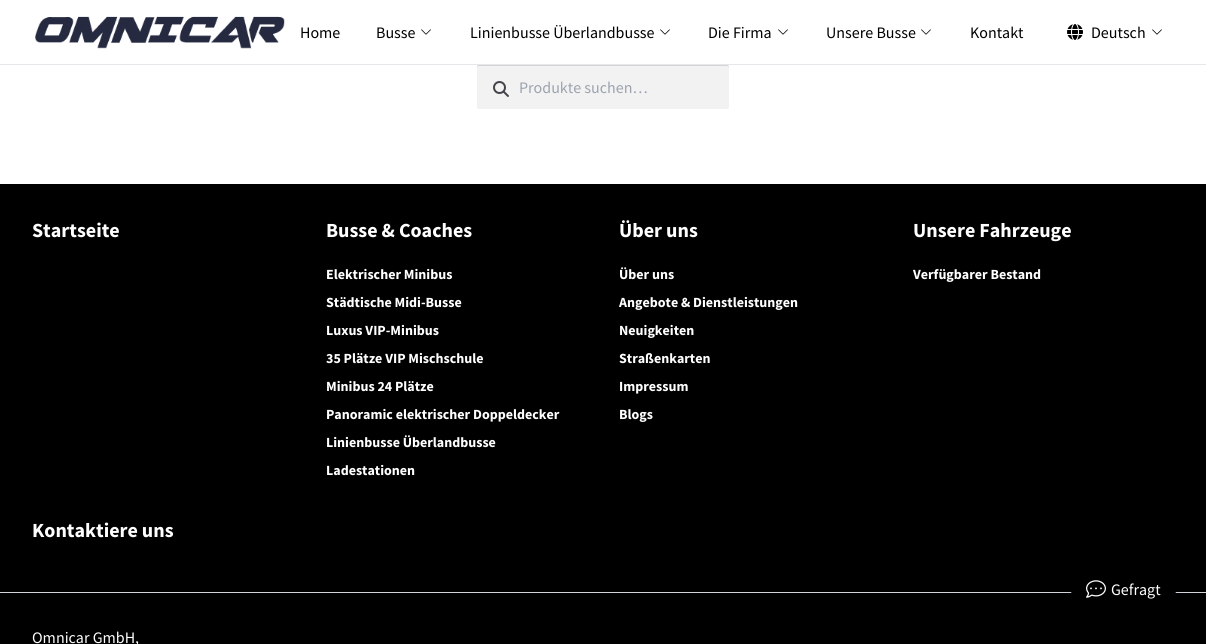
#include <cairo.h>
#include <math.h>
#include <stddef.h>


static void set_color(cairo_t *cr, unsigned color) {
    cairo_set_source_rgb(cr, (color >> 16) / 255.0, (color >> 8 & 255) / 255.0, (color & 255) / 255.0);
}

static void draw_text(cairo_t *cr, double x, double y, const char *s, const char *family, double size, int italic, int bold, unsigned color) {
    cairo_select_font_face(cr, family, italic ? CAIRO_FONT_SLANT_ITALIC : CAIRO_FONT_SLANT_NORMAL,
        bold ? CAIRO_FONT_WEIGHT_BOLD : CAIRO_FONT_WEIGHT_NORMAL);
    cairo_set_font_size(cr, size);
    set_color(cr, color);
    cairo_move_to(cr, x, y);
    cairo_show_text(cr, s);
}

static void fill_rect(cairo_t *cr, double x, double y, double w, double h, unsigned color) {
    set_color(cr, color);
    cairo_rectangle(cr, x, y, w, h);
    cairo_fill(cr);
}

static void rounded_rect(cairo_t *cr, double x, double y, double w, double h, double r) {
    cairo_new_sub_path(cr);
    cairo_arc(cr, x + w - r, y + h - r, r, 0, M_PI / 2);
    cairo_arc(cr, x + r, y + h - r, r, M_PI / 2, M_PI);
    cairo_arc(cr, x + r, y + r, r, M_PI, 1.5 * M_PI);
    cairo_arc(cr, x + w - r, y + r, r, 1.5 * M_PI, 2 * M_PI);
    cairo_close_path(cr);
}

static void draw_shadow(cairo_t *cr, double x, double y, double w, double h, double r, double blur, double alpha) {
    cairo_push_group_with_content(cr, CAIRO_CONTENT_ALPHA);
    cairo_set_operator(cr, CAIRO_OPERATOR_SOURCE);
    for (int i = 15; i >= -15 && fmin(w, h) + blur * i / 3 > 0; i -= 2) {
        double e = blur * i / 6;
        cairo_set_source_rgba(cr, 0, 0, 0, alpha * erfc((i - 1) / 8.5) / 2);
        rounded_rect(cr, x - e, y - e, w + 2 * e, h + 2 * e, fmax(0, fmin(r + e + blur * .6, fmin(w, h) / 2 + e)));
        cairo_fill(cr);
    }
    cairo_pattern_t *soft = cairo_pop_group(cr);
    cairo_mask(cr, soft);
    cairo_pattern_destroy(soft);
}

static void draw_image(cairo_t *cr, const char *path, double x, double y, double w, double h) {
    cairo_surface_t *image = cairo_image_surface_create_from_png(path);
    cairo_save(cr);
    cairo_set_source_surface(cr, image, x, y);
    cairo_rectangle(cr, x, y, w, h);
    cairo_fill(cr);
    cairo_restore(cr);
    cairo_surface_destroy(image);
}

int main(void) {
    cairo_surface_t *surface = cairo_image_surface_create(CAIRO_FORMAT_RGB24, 1206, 644);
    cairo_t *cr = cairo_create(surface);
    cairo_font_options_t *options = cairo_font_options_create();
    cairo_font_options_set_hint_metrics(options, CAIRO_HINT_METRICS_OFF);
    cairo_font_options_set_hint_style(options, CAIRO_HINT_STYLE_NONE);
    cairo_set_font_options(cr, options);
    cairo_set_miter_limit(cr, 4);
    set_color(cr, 0xFFFFFF);
    cairo_paint(cr);
    fill_rect(cr, 0, 64, 1206, 1, 0xE5E7EB);
    draw_image(cr, "assets/img1.png", 35, 16, 250, 33);
    draw_text(cr, 300, 38, "Home", "Source Sans Pro", 16, 0, 0, 0x000000);
    draw_text(cr, 376, 38, "Busse", "Source Sans Pro", 16, 0, 0, 0x000000);
    draw_image(cr, "assets/img2.png", 421, 29, 10, 6);
    draw_text(cr, 470, 38, "Linienbusse Überlandbusse", "Source Sans Pro", 16, 0, 0, 0x000000);
    draw_image(cr, "assets/img2.png", 660, 29, 10, 6);
    draw_text(cr, 708, 38, "Die Firma", "Source Sans Pro", 16, 0, 0, 0x000000);
    draw_image(cr, "assets/img2.png", 778, 29, 10, 6);
    draw_text(cr, 826, 38, "Unsere Busse", "Source Sans Pro", 16, 0, 0, 0x000000);
    draw_image(cr, "assets/img2.png", 921, 29, 10, 6);
    draw_text(cr, 970, 38, "Kontakt", "Source Sans Pro", 16, 0, 0, 0x000000);
    draw_image(cr, "assets/img3.png", 1067, 24, 16, 16);
    draw_text(cr, 1091, 38, "Deutsch", "Source Sans Pro", 16, 0, 0, 0x000000);
    draw_image(cr, "assets/img2.png", 1152, 29, 10, 6);
    set_color(cr, 0xF2F2F2);
    rounded_rect(cr, 477, 65, 252, 44, 2);
    cairo_fill(cr);
    draw_image(cr, "assets/img4.png", 493, 81, 16, 16);
    set_color(cr, 0xD4D4D4);
    cairo_new_path(cr);
    cairo_move_to(cr, 479, 66);
    cairo_line_to(cr, 727, 66);
    cairo_curve_to(cr, 728, 66, 729, 67, 729, 68);
    cairo_curve_to(cr, 729, 67, 729, 65, 727, 65);
    cairo_line_to(cr, 479, 65);
    cairo_curve_to(cr, 477, 65, 477, 67, 477, 68);
    cairo_curve_to(cr, 477, 67, 478, 66, 479, 66);
    cairo_close_path(cr);
    cairo_fill(cr);
    draw_text(cr, 519, 93, "Produkte suchen…", "Source Sans Pro", 16, 0, 0, 0x9CA3AF);
    fill_rect(cr, 0, 184, 1206, 460, 0x000000);
    draw_text(cr, 32, 237, "Startseite", "Source Sans Pro", 20, 0, 1, 0xFFFFFF);
    draw_text(cr, 326, 237, "Busse & Coaches", "Source Sans Pro", 20, 0, 1, 0xFFFFFF);
    draw_text(cr, 326, 279, "Elektrischer Minibus", "Source Sans Pro", 14, 0, 1, 0xFFFFFF);
    draw_text(cr, 326, 307, "Städtische Midi-Busse", "Source Sans Pro", 14, 0, 1, 0xFFFFFF);
    draw_text(cr, 326, 335, "Luxus VIP-Minibus", "Source Sans Pro", 14, 0, 1, 0xFFFFFF);
    draw_text(cr, 326, 363, "35 Plätze VIP Mischschule", "Source Sans Pro", 14, 0, 1, 0xFFFFFF);
    draw_text(cr, 326, 391, "Minibus 24 Plätze", "Source Sans Pro", 14, 0, 1, 0xFFFFFF);
    draw_text(cr, 326, 419, "Panoramic elektrischer Doppeldecker", "Source Sans Pro", 14, 0, 1, 0xFFFFFF);
    draw_text(cr, 326, 447, "Linienbusse Überlandbusse", "Source Sans Pro", 14, 0, 1, 0xFFFFFF);
    draw_text(cr, 326, 475, "Ladestationen", "Source Sans Pro", 14, 0, 1, 0xFFFFFF);
    draw_text(cr, 619, 237, "Über uns", "Source Sans Pro", 20, 0, 1, 0xFFFFFF);
    draw_text(cr, 619, 279, "Über uns", "Source Sans Pro", 14, 0, 1, 0xFFFFFF);
    draw_text(cr, 619, 307, "Angebote & Dienstleistungen", "Source Sans Pro", 14, 0, 1, 0xFFFFFF);
    draw_text(cr, 619, 335, "Neuigkeiten", "Source Sans Pro", 14, 0, 1, 0xFFFFFF);
    draw_text(cr, 619, 363, "Straßenkarten", "Source Sans Pro", 14, 0, 1, 0xFFFFFF);
    draw_text(cr, 619, 391, "Impressum", "Source Sans Pro", 14, 0, 1, 0xFFFFFF);
    draw_text(cr, 619, 419, "Blogs", "Source Sans Pro", 14, 0, 1, 0xFFFFFF);
    draw_text(cr, 913, 237, "Unsere Fahrzeuge", "Source Sans Pro", 20, 0, 1, 0xFFFFFF);
    draw_text(cr, 913, 279, "Verfügbarer Bestand", "Source Sans Pro", 14, 0, 1, 0xFFFFFF);
    draw_text(cr, 32, 537, "Kontaktiere uns", "Source Sans Pro", 20, 0, 1, 0xFFFFFF);
    fill_rect(cr, 0, 592, 1206, 1, 0xD1D5DB);
    draw_text(cr, 32, 643, "Omnicar GmbH,", "Source Sans Pro", 16, 0, 0, 0xFFFFFF);
    set_color(cr, 0x000000);
    draw_shadow(cr, 1074, 577, 99, 44, 22, 7.5, 0.1);
    set_color(cr, 0x000000);
    rounded_rect(cr, 1071, 564, 105, 50, 25);
    cairo_fill(cr);
    draw_image(cr, "assets/img5.png", 1086, 580, 20, 18);
    draw_text(cr, 1111, 595, "Gefragt", "Source Sans Pro", 16, 0, 0, 0xFFFFFF);
    cairo_surface_write_to_png(surface, "output.png");
    cairo_font_options_destroy(options);
    cairo_destroy(cr);
    cairo_surface_destroy(surface);
    return 0;
}
